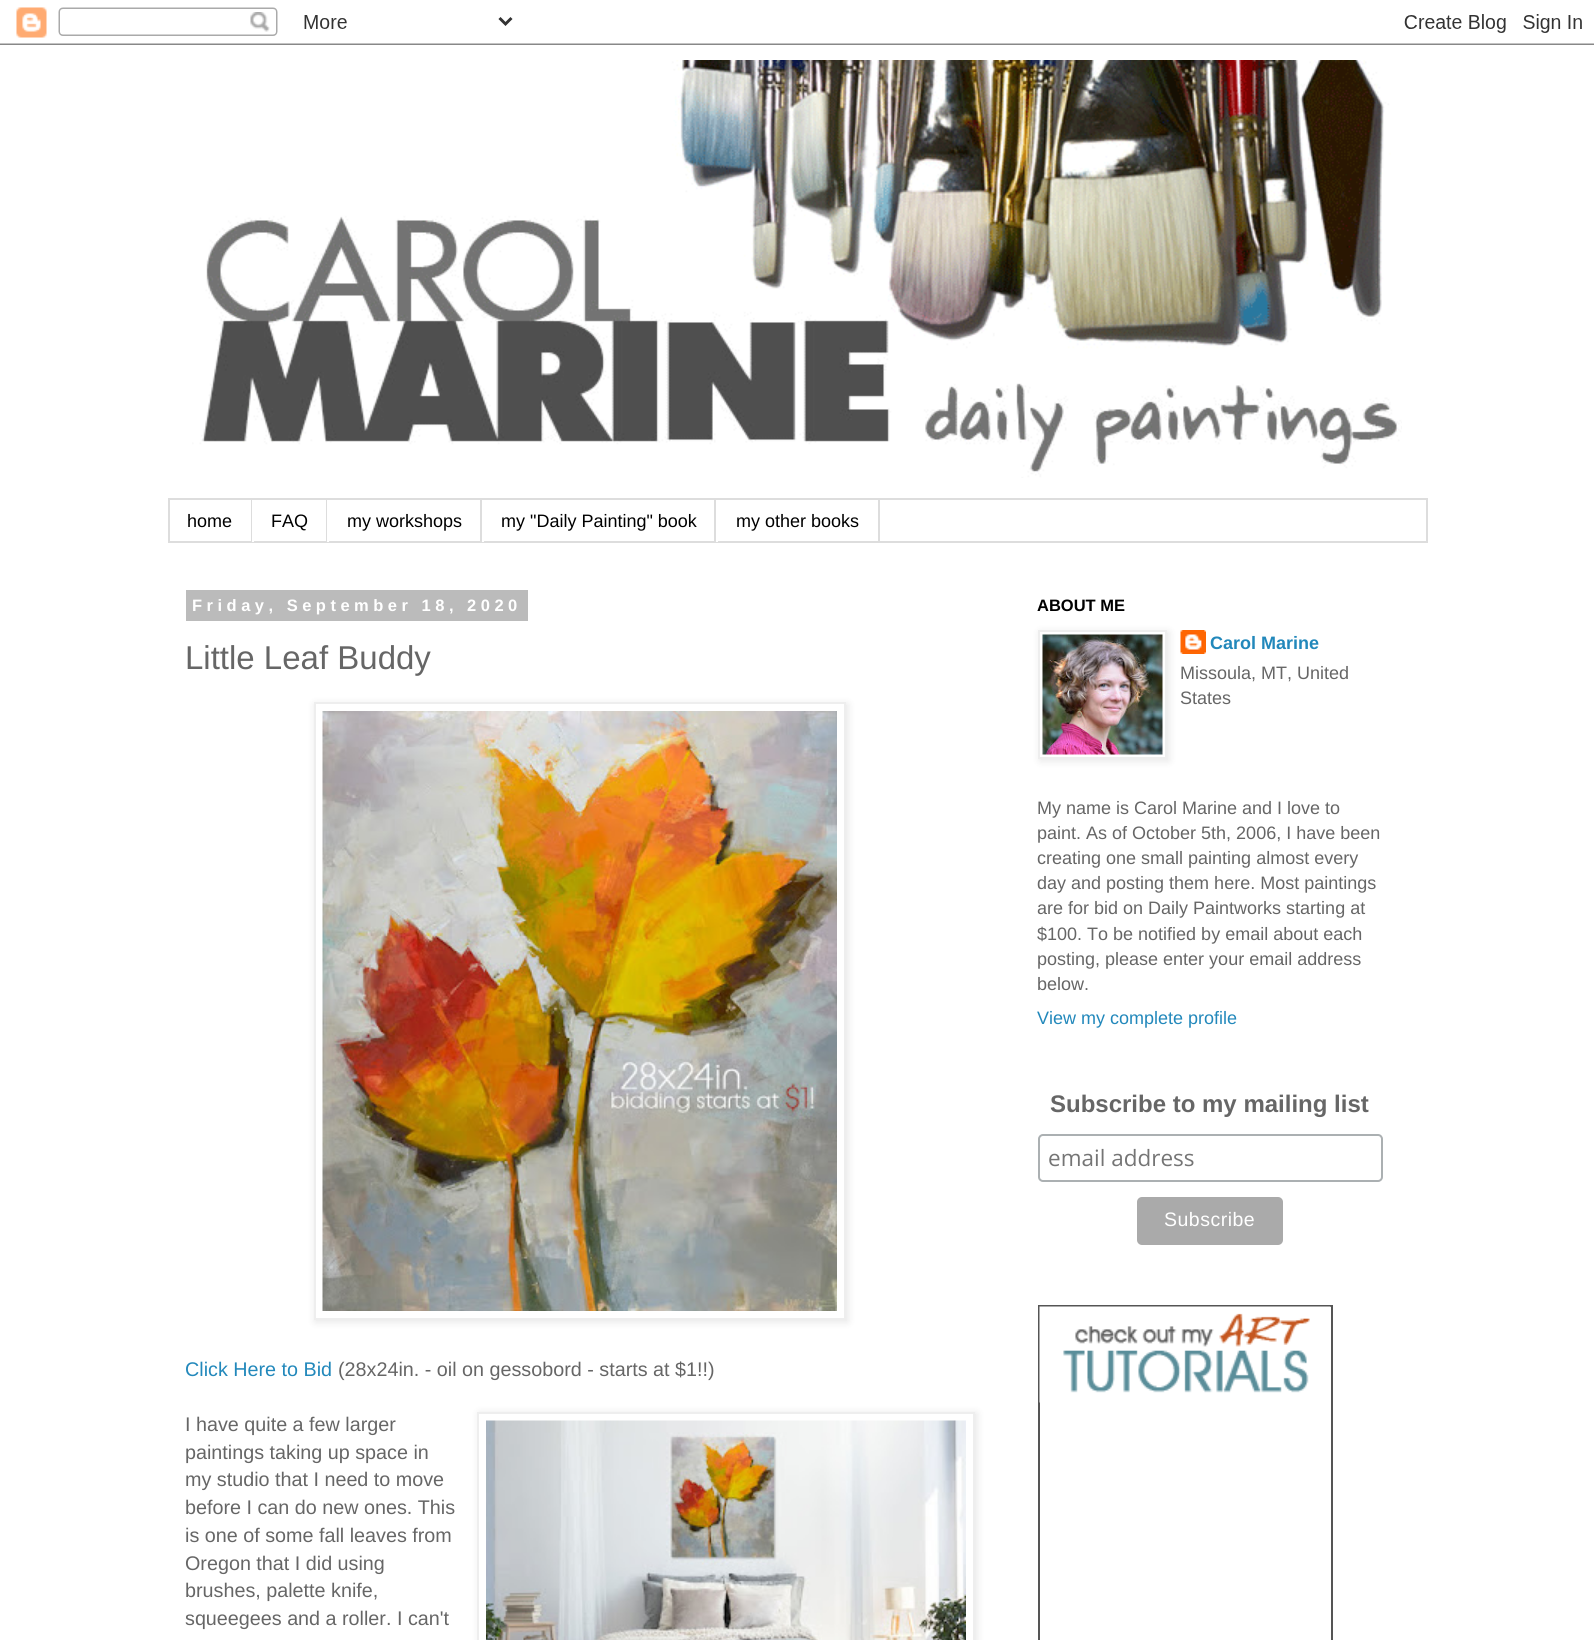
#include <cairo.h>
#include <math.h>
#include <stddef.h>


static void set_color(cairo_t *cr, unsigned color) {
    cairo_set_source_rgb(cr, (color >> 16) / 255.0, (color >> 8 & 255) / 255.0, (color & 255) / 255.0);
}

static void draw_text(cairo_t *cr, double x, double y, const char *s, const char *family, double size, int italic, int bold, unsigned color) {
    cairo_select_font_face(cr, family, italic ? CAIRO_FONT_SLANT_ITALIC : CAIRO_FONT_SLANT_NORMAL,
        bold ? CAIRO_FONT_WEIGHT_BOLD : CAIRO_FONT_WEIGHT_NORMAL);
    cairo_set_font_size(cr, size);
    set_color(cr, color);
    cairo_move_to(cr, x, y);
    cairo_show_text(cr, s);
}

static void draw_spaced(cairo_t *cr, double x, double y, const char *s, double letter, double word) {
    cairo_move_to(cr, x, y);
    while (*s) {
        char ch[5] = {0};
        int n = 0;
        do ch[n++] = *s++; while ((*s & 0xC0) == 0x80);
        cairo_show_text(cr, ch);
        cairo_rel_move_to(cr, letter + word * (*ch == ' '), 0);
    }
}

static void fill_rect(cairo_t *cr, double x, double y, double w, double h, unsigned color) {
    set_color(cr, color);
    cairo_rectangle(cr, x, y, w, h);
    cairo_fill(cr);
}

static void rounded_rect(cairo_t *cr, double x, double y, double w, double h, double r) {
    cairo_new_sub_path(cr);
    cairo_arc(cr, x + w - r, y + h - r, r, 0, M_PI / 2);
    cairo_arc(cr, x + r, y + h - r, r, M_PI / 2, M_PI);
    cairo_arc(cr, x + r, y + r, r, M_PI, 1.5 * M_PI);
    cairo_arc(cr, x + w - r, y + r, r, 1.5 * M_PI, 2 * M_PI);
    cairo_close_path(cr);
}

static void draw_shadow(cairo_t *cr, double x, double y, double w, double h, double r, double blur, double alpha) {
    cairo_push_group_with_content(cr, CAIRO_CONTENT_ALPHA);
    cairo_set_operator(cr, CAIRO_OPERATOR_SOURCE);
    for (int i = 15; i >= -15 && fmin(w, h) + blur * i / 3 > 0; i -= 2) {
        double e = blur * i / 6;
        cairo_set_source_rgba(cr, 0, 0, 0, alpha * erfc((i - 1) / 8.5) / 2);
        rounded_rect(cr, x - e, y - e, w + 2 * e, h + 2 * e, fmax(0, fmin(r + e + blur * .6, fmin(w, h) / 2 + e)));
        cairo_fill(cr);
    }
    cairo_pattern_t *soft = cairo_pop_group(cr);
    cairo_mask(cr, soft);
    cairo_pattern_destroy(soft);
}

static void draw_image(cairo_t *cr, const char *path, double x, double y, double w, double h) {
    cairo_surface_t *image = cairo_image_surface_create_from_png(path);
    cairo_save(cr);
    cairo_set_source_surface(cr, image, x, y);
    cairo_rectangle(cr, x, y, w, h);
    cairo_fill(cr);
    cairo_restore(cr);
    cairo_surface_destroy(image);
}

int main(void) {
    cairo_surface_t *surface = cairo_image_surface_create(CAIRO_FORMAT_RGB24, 1594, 1640);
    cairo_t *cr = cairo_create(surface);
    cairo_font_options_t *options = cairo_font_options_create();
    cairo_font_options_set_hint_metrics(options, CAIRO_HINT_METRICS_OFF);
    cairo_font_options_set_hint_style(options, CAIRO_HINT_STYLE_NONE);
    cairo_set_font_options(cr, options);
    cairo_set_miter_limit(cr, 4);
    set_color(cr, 0xFFFFFF);
    cairo_paint(cr);
    draw_image(cr, "assets/img1.png", 0, 7, 1594, 38);
    draw_image(cr, "assets/img2.png", 192, 60, 1210, 418);
    cairo_rectangle(cr, 169, 499, 1258, 43);
    set_color(cr, 0xDDDDDD);
    cairo_stroke(cr);
    fill_rect(cr, 251, 500, 1, 42, 0xDDDDDD);
    draw_text(cr, 187, 527, "home", "Liberation Sans", 18, 0, 0, 0x000000);
    fill_rect(cr, 326, 500, 1, 42, 0xDDDDDD);
    fill_rect(cr, 252, 541, 2, 1, 0xFFFFFF);
    draw_text(cr, 271, 527, "FAQ", "Liberation Sans", 18, 0, 0, 0x000000);
    fill_rect(cr, 480, 500, 2, 42, 0xDDDDDD);
    fill_rect(cr, 327, 541, 2, 1, 0xFFFFFF);
    draw_text(cr, 347, 527, "my workshops", "Liberation Sans", 18, 0, 0, 0x000000);
    fill_rect(cr, 714, 500, 2, 42, 0xDDDDDD);
    fill_rect(cr, 482, 541, 2, 1, 0xFFFFFF);
    draw_text(cr, 501, 527, "my \"Daily Painting\" book", "Liberation Sans", 18, 0, 0, 0x000000);
    fill_rect(cr, 878, 500, 2, 42, 0xDDDDDD);
    fill_rect(cr, 716, 541, 2, 1, 0xFFFFFF);
    draw_text(cr, 736, 527, "my other books", "Liberation Sans", 18, 0, 0, 0x000000);
    fill_rect(cr, 186, 590, 342, 31, 0xBBBBBB);
    cairo_select_font_face(cr, "Liberation Sans", CAIRO_FONT_SLANT_NORMAL, CAIRO_FONT_WEIGHT_BOLD);
    cairo_set_font_size(cr, 16.5);
    set_color(cr, 0xFFFFFF);
    draw_spaced(cr, 192, 611, "Friday, September 18, 2020", 4.5, 0);
    draw_text(cr, 185, 669, "Little Leaf Buddy", "Liberation Sans", 33, 0, 0, 0x666666);
    cairo_save(cr);
    cairo_set_fill_rule(cr, CAIRO_FILL_RULE_EVEN_ODD);
    cairo_new_path(cr);
    cairo_move_to(cr, 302, 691);
    cairo_line_to(cr, 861, 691);
    cairo_line_to(cr, 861, 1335);
    cairo_line_to(cr, 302, 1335);
    cairo_close_path(cr);
    cairo_move_to(cr, 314, 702);
    cairo_line_to(cr, 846, 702);
    cairo_line_to(cr, 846, 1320);
    cairo_line_to(cr, 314, 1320);
    cairo_close_path(cr);
    cairo_clip(cr);
    set_color(cr, 0x000000);
    draw_shadow(cr, 315, 704, 533, 618, 0, 4, 0.1);
    cairo_restore(cr);
    cairo_rectangle(cr, 315, 703, 530, 616);
    set_color(cr, 0xEEEEEE);
    cairo_stroke(cr);
    draw_image(cr, "assets/img3.png", 322, 711, 515, 600);
    draw_text(cr, 185, 1376, "Click Here to Bid", "Liberation Sans", 19.75, 0, 0, 0x2288BB);
    draw_text(cr, 338, 1376, "(28x24in. - oil on gessobord - starts at $1!!)", "Liberation Sans", 19.75, 0, 0, 0x666666);
    draw_text(cr, 185, 1431, "I have quite a few larger", "Liberation Sans", 19.75, 0, 0, 0x666666);
    cairo_save(cr);
    cairo_set_fill_rule(cr, CAIRO_FILL_RULE_EVEN_ODD);
    cairo_new_path(cr);
    cairo_move_to(cr, 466, 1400);
    cairo_line_to(cr, 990, 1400);
    cairo_line_to(cr, 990, 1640);
    cairo_line_to(cr, 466, 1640);
    cairo_close_path(cr);
    cairo_move_to(cr, 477, 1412);
    cairo_line_to(cr, 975, 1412);
    cairo_line_to(cr, 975, 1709);
    cairo_line_to(cr, 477, 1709);
    cairo_close_path(cr);
    cairo_clip(cr);
    set_color(cr, 0x000000);
    draw_shadow(cr, 479, 1413, 498, 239, 0, 4, 0.1);
    cairo_restore(cr);
    cairo_rectangle(cr, 478, 1413, 496, 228);
    set_color(cr, 0xEEEEEE);
    cairo_stroke(cr);
    draw_image(cr, "assets/img4.png", 486, 1420, 480, 220);
    draw_text(cr, 185, 1459, "paintings taking up space in", "Liberation Sans", 19.75, 0, 0, 0x666666);
    draw_text(cr, 185, 1486, "my studio that I need to move", "Liberation Sans", 19.75, 0, 0, 0x666666);
    draw_text(cr, 185, 1514, "before I can do new ones. This", "Liberation Sans", 19.75, 0, 0, 0x666666);
    draw_text(cr, 185, 1542, "is one of some fall leaves from", "Liberation Sans", 19.75, 0, 0, 0x666666);
    draw_text(cr, 185, 1570, "Oregon that I did using", "Liberation Sans", 19.75, 0, 0, 0x666666);
    draw_text(cr, 185, 1597, "brushes, palette knife,", "Liberation Sans", 19.75, 0, 0, 0x666666);
    draw_text(cr, 185, 1625, "squeegees and a roller. I can't", "Liberation Sans", 19.75, 0, 0, 0x666666);
    draw_text(cr, 1037, 611, "ABOUT ME", "Liberation Sans", 16.5, 0, 1, 0x000000);
    draw_image(cr, "assets/img6.png", 1180, 630, 26, 24);
    cairo_save(cr);
    cairo_set_fill_rule(cr, CAIRO_FILL_RULE_EVEN_ODD);
    cairo_new_path(cr);
    cairo_move_to(cr, 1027, 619);
    cairo_line_to(cr, 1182, 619);
    cairo_line_to(cr, 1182, 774);
    cairo_line_to(cr, 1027, 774);
    cairo_close_path(cr);
    cairo_move_to(cr, 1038, 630);
    cairo_line_to(cr, 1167, 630);
    cairo_line_to(cr, 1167, 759);
    cairo_line_to(cr, 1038, 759);
    cairo_close_path(cr);
    cairo_clip(cr);
    set_color(cr, 0x000000);
    draw_shadow(cr, 1040, 632, 129, 129, 0, 4, 0.1);
    cairo_restore(cr);
    cairo_rectangle(cr, 1039, 631, 127, 127);
    set_color(cr, 0xEEEEEE);
    cairo_stroke(cr);
    draw_image(cr, "assets/img5.png", 1042, 634, 121, 121);
    draw_text(cr, 1210, 649, "Carol Marine", "Liberation Sans", 18, 0, 1, 0x2288BB);
    draw_text(cr, 1180, 679, "Missoula, MT, United", "Liberation Sans", 18, 0, 0, 0x666666);
    draw_text(cr, 1180, 704, "States", "Liberation Sans", 18, 0, 0, 0x666666);
    draw_text(cr, 1037, 814, "My name is Carol Marine and I love to", "Liberation Sans", 18, 0, 0, 0x666666);
    draw_text(cr, 1037, 839, "paint. As of October 5th, 2006, I have been", "Liberation Sans", 18, 0, 0, 0x666666);
    draw_text(cr, 1037, 864, "creating one small painting almost every", "Liberation Sans", 18, 0, 0, 0x666666);
    draw_text(cr, 1037, 889, "day and posting them here. Most paintings", "Liberation Sans", 18, 0, 0, 0x666666);
    draw_text(cr, 1037, 914, "are for bid on Daily Paintworks starting at", "Liberation Sans", 18, 0, 0, 0x666666);
    draw_text(cr, 1037, 940, "$100. To be notified by email about each", "Liberation Sans", 18, 0, 0, 0x666666);
    draw_text(cr, 1037, 965, "posting, please enter your email address", "Liberation Sans", 18, 0, 0, 0x666666);
    draw_text(cr, 1037, 990, "below.", "Liberation Sans", 18, 0, 0, 0x666666);
    draw_text(cr, 1037, 1024, "View my complete profile", "Liberation Sans", 18, 0, 0, 0x2288BB);
    draw_text(cr, 1050, 1112, "Subscribe to my mailing list", "Liberation Sans", 24, 0, 1, 0x666666);
    rounded_rect(cr, 1039, 1135, 343, 46, 4);
    set_color(cr, 0xABB0B2);
    cairo_stroke(cr);
    draw_text(cr, 1048, 1166, "email address", "Open Sans", 22.5, 0, 0, 0x757575);
    set_color(cr, 0xAAAAAA);
    rounded_rect(cr, 1137, 1197, 146, 48, 5);
    cairo_fill(cr);
    cairo_select_font_face(cr, "Liberation Sans", CAIRO_FONT_SLANT_NORMAL, CAIRO_FONT_WEIGHT_NORMAL);
    cairo_set_font_size(cr, 19.5);
    set_color(cr, 0xFFFFFF);
    draw_spaced(cr, 1164, 1226, "Subscribe", 0.5, 0);
    fill_rect(cr, 1038, 1305, 294, 2, 0x555555);
    fill_rect(cr, 1331, 1305, 2, 335, 0x555555);
    fill_rect(cr, 1038, 1305, 2, 335, 0x555555);
    draw_image(cr, "assets/img7.png", 1039, 1306, 292, 97);
    cairo_surface_write_to_png(surface, "output.png");
    cairo_font_options_destroy(options);
    cairo_destroy(cr);
    cairo_surface_destroy(surface);
    return 0;
}
